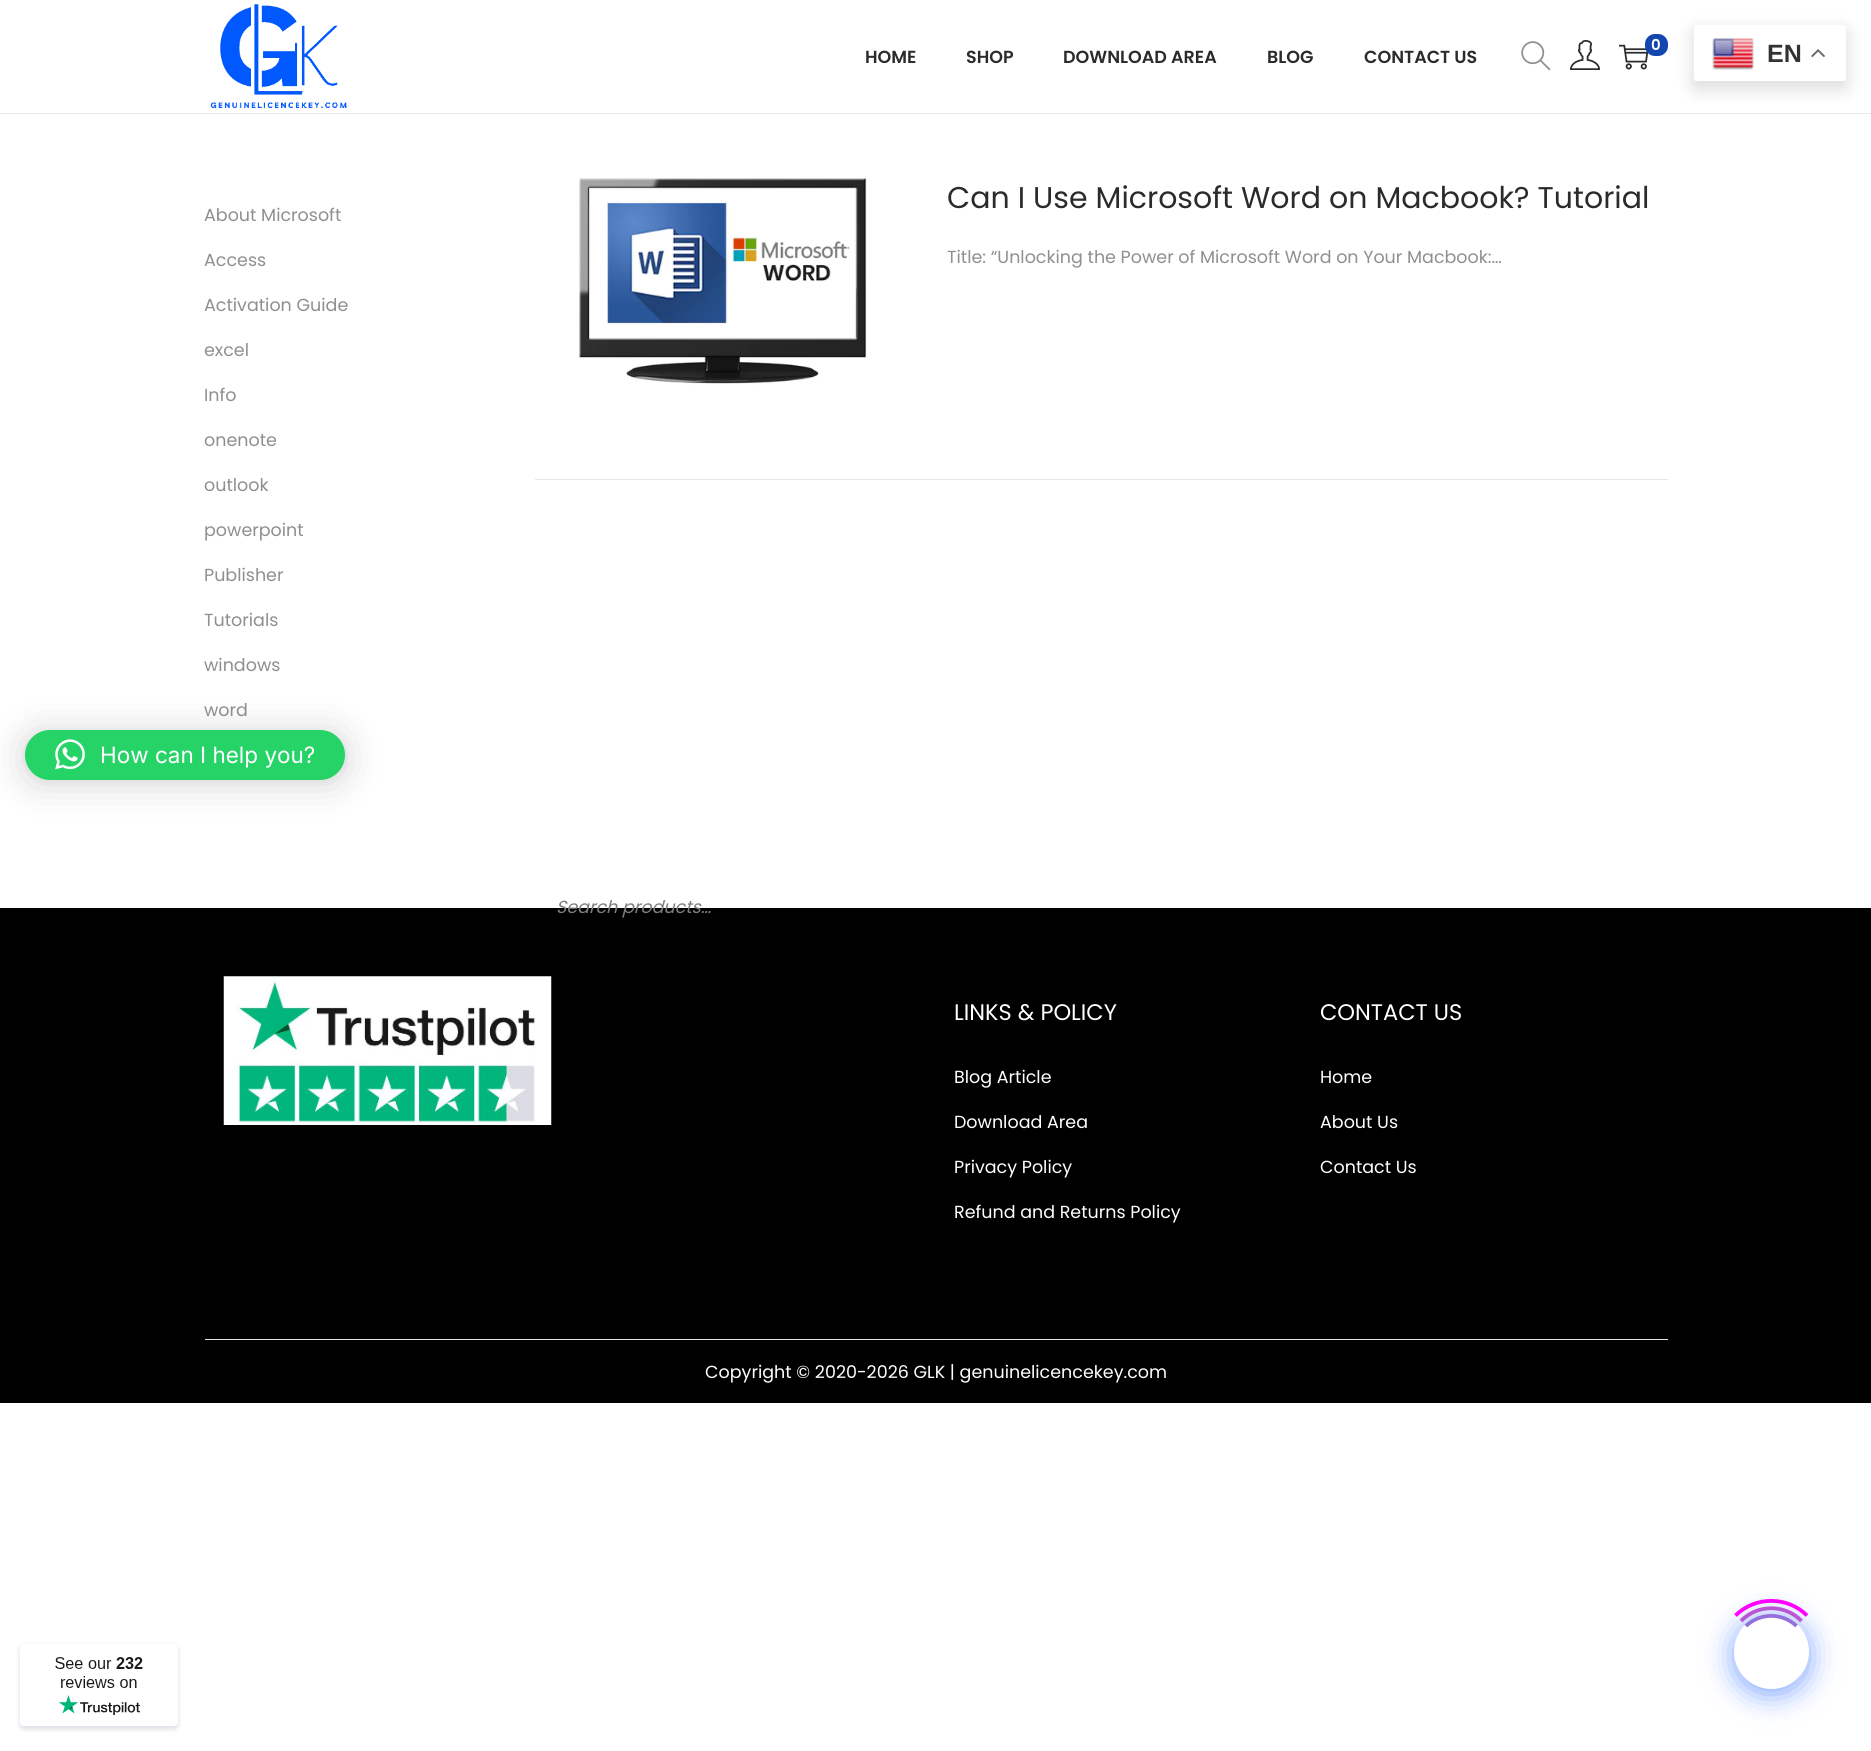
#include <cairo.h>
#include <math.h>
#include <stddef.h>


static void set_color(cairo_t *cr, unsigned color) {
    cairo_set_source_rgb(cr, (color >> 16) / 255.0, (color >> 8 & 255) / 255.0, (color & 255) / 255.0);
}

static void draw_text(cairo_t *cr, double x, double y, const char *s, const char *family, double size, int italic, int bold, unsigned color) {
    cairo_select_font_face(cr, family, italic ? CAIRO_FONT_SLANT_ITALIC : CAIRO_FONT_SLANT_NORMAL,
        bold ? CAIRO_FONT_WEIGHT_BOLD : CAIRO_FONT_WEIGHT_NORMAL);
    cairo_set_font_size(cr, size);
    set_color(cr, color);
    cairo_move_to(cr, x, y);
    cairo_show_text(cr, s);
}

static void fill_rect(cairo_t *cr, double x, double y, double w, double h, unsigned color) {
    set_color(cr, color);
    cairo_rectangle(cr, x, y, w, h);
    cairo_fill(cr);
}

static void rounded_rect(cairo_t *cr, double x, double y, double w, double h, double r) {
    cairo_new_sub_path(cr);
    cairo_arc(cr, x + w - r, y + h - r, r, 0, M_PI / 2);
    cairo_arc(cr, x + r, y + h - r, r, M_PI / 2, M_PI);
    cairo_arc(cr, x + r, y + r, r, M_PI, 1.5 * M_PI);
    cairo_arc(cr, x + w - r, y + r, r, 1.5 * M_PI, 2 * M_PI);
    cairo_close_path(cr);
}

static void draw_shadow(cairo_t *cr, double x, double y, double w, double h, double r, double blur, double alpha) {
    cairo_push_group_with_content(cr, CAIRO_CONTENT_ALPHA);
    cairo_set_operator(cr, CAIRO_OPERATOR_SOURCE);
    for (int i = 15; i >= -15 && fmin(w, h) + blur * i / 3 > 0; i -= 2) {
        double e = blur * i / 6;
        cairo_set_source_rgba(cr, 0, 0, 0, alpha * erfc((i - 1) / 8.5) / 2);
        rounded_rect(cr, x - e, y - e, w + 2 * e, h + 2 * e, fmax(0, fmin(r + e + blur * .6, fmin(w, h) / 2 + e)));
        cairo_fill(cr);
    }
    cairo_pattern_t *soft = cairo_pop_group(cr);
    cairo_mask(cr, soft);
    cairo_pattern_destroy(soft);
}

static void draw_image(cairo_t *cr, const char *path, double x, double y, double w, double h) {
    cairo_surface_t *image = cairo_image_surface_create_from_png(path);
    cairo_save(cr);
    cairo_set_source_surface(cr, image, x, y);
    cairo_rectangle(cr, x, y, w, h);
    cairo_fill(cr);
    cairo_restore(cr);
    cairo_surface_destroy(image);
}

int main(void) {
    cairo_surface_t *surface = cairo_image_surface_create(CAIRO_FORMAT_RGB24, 1871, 1751);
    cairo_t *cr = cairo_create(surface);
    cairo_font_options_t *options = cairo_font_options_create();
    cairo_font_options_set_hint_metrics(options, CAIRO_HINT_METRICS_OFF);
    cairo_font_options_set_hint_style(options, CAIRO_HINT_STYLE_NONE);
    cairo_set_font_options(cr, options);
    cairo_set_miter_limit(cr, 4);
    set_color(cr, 0xFFFFFF);
    cairo_paint(cr);
    fill_rect(cr, 0, 113, 1871, 1, 0xEAEAEA);
    draw_image(cr, "assets/img1.png", 210, 4, 137, 104);
    draw_image(cr, "assets/img2.png", 1521, 41, 30, 30);
    draw_image(cr, "assets/img3.png", 1570, 40, 30, 30);
    draw_image(cr, "assets/img4.png", 1619, 44, 30, 26);
    set_color(cr, 0x1346AF);
    rounded_rect(cr, 1645, 34, 23, 22, 10);
    cairo_fill(cr);
    draw_text(cr, 1651, 50, "0", "Poppins SemiBold", 15, 0, 0, 0xFFFFFF);
    draw_text(cr, 865, 63, "HOME", "Poppins SemiBold", 17.5, 0, 0, 0x2B2B2B);
    draw_text(cr, 966, 63, "SHOP", "Poppins SemiBold", 17.5, 0, 0, 0x2B2B2B);
    draw_text(cr, 1063, 63, "DOWNLOAD AREA", "Poppins SemiBold", 17.5, 0, 0, 0x2B2B2B);
    draw_text(cr, 1267, 63, "BLOG", "Poppins SemiBold", 17.5, 0, 0, 0x2B2B2B);
    draw_text(cr, 1364, 63, "CONTACT US", "Poppins SemiBold", 17.5, 0, 0, 0x2B2B2B);
    cairo_save(cr);
    cairo_set_fill_rule(cr, CAIRO_FILL_RULE_EVEN_ODD);
    cairo_new_path(cr);
    cairo_move_to(cr, 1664, 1);
    cairo_line_to(cr, 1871, 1);
    cairo_line_to(cr, 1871, 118);
    cairo_line_to(cr, 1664, 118);
    cairo_close_path(cr);
    cairo_move_to(cr, 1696.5, 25);
    cairo_line_to(cr, 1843.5, 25);
    cairo_curve_to(cr, 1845, 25, 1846, 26, 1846, 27.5);
    cairo_line_to(cr, 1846, 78.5);
    cairo_curve_to(cr, 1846, 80, 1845, 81, 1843.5, 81);
    cairo_line_to(cr, 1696.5, 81);
    cairo_curve_to(cr, 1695, 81, 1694, 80, 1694, 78.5);
    cairo_line_to(cr, 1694, 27.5);
    cairo_curve_to(cr, 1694, 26, 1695, 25, 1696.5, 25);
    cairo_close_path(cr);
    cairo_clip(cr);
    set_color(cr, 0x000000);
    draw_shadow(cr, 1694, 31, 152, 57, 2.5, 9.5, 0.15);
    cairo_restore(cr);
    draw_image(cr, "assets/img5.png", 1712, 38, 42, 32);
    draw_text(cr, 1767, 62, "EN", "Liberation Sans", 25, 0, 1, 0x333333);
    draw_image(cr, "assets/img6.png", 1811, 49, 14, 9);
    draw_text(cr, 204, 221, "About Microsoft", "Poppins", 17.5, 0, 0, 0x8F8F8F);
    draw_text(cr, 204, 266, "Access", "Poppins", 17.5, 0, 0, 0x8F8F8F);
    draw_text(cr, 204, 311, "Activation Guide", "Poppins", 17.5, 0, 0, 0x8F8F8F);
    draw_text(cr, 204, 356, "excel", "Poppins", 17.5, 0, 0, 0x8F8F8F);
    draw_text(cr, 204, 401, "Info", "Poppins", 17.5, 0, 0, 0x8F8F8F);
    draw_text(cr, 204, 446, "onenote", "Poppins", 17.5, 0, 0, 0x8F8F8F);
    draw_text(cr, 204, 491, "outlook", "Poppins", 17.5, 0, 0, 0x8F8F8F);
    draw_text(cr, 204, 536, "powerpoint", "Poppins", 17.5, 0, 0, 0x8F8F8F);
    draw_text(cr, 204, 581, "Publisher", "Poppins", 17.5, 0, 0, 0x8F8F8F);
    draw_text(cr, 204, 626, "Tutorials", "Poppins", 17.5, 0, 0, 0x8F8F8F);
    draw_text(cr, 204, 671, "windows", "Poppins", 17.5, 0, 0, 0x8F8F8F);
    draw_text(cr, 204, 716, "word", "Poppins", 17.5, 0, 0, 0x8F8F8F);
    fill_rect(cr, 535, 479, 1133, 1, 0xE8E8E8);
    draw_image(cr, "assets/img7.png", 579, 178, 288, 207);
    draw_text(cr, 947, 208, "Can I Use Microsoft Word on Macbook? Tutorial", "Poppins", 30, 0, 0, 0x2B2B2B);
    draw_text(cr, 947, 263, "Title: “Unlocking the Power of Microsoft Word on Your Macbook:…", "Poppins", 17.5, 0, 0, 0x8F8F8F);
    fill_rect(cr, 0, 908, 1871, 495, 0x000000);
    draw_image(cr, "assets/img8.png", 223, 976, 329, 149);
    draw_text(cr, 954, 1020, "LINKS & POLICY", "Poppins", 22.5, 0, 0, 0xFFFFFF);
    draw_text(cr, 954, 1083, "Blog Article", "Poppins", 17.5, 0, 0, 0xFFFFFF);
    draw_text(cr, 954, 1128, "Download Area", "Poppins", 17.5, 0, 0, 0xFFFFFF);
    draw_text(cr, 954, 1173, "Privacy Policy", "Poppins", 17.5, 0, 0, 0xFFFFFF);
    draw_text(cr, 954, 1218, "Refund and Returns Policy", "Poppins", 17.5, 0, 0, 0xFFFFFF);
    draw_text(cr, 1320, 1020, "CONTACT US", "Poppins", 22.5, 0, 0, 0xFFFFFF);
    draw_text(cr, 1320, 1083, "Home", "Poppins", 17.5, 0, 0, 0xFFFFFF);
    draw_text(cr, 1320, 1128, "About Us", "Poppins", 17.5, 0, 0, 0xFFFFFF);
    draw_text(cr, 1320, 1173, "Contact Us", "Poppins", 17.5, 0, 0, 0xFFFFFF);
    fill_rect(cr, 205, 1339, 1463, 1, 0xE3E3E3);
    draw_text(cr, 705, 1378, "Copyright © 2020-2026 GLK | genuinelicencekey.com", "Poppins", 17.5, 0, 0, 0xFFFFFF);
    set_color(cr, 0x000000);
    draw_shadow(cr, 25, 733, 320, 50, 25, 20, 0.16);
    draw_shadow(cr, 25, 731, 320, 50, 25, 4, 0.06);
    set_color(cr, 0x25D366);
    rounded_rect(cr, 25, 730, 320, 50, 25);
    cairo_fill(cr);
    draw_image(cr, "assets/img9.png", 55, 739, 30, 31);
    draw_text(cr, 100, 763, "How can I help you?", "Inter", 22.5, 0, 0, 0xFFFFFF);
    draw_text(cr, 556, 913, "Search products…", "Poppins", 17.5, 1, 0, 0x7F7F7F);
    set_color(cr, 0xDCDCE6);
    draw_shadow(cr, 20, 1646, 158, 83, 4, 2.5, 1);
    set_color(cr, 0xFFFFFF);
    rounded_rect(cr, 20, 1644, 158, 82, 4);
    cairo_fill(cr);
    draw_image(cr, "assets/img10.png", 55, 1657, 88, 58);
    set_color(cr, 0x004DFF);
    draw_shadow(cr, 1734, 1619, 75, 75, 37.5, 15, 0.5);
    set_color(cr, 0xFFFFFF);
    cairo_arc(cr, 1771.5, 1651.5, 37.5, 0, 2 * M_PI);
    cairo_fill(cr);
    cairo_new_path(cr);
    cairo_move_to(cr, 1746, 1626);
    cairo_curve_to(cr, 1760, 1612.5, 1782.5, 1612.5, 1796.5, 1626);
    set_color(cr, 0x9370DB);
    cairo_set_line_width(cr, 3.8);
    cairo_stroke(cr);
    cairo_new_path(cr);
    cairo_move_to(cr, 1741, 1621);
    cairo_curve_to(cr, 1757.5, 1604, 1785, 1604, 1801.5, 1621);
    set_color(cr, 0xBA55D3);
    cairo_stroke(cr);
    cairo_new_path(cr);
    cairo_move_to(cr, 1735.5, 1615.5);
    cairo_curve_to(cr, 1755, 1596, 1787.5, 1596, 1807, 1615.5);
    set_color(cr, 0xFF00FF);
    cairo_stroke(cr);
    cairo_surface_write_to_png(surface, "output.png");
    cairo_font_options_destroy(options);
    cairo_destroy(cr);
    cairo_surface_destroy(surface);
    return 0;
}
